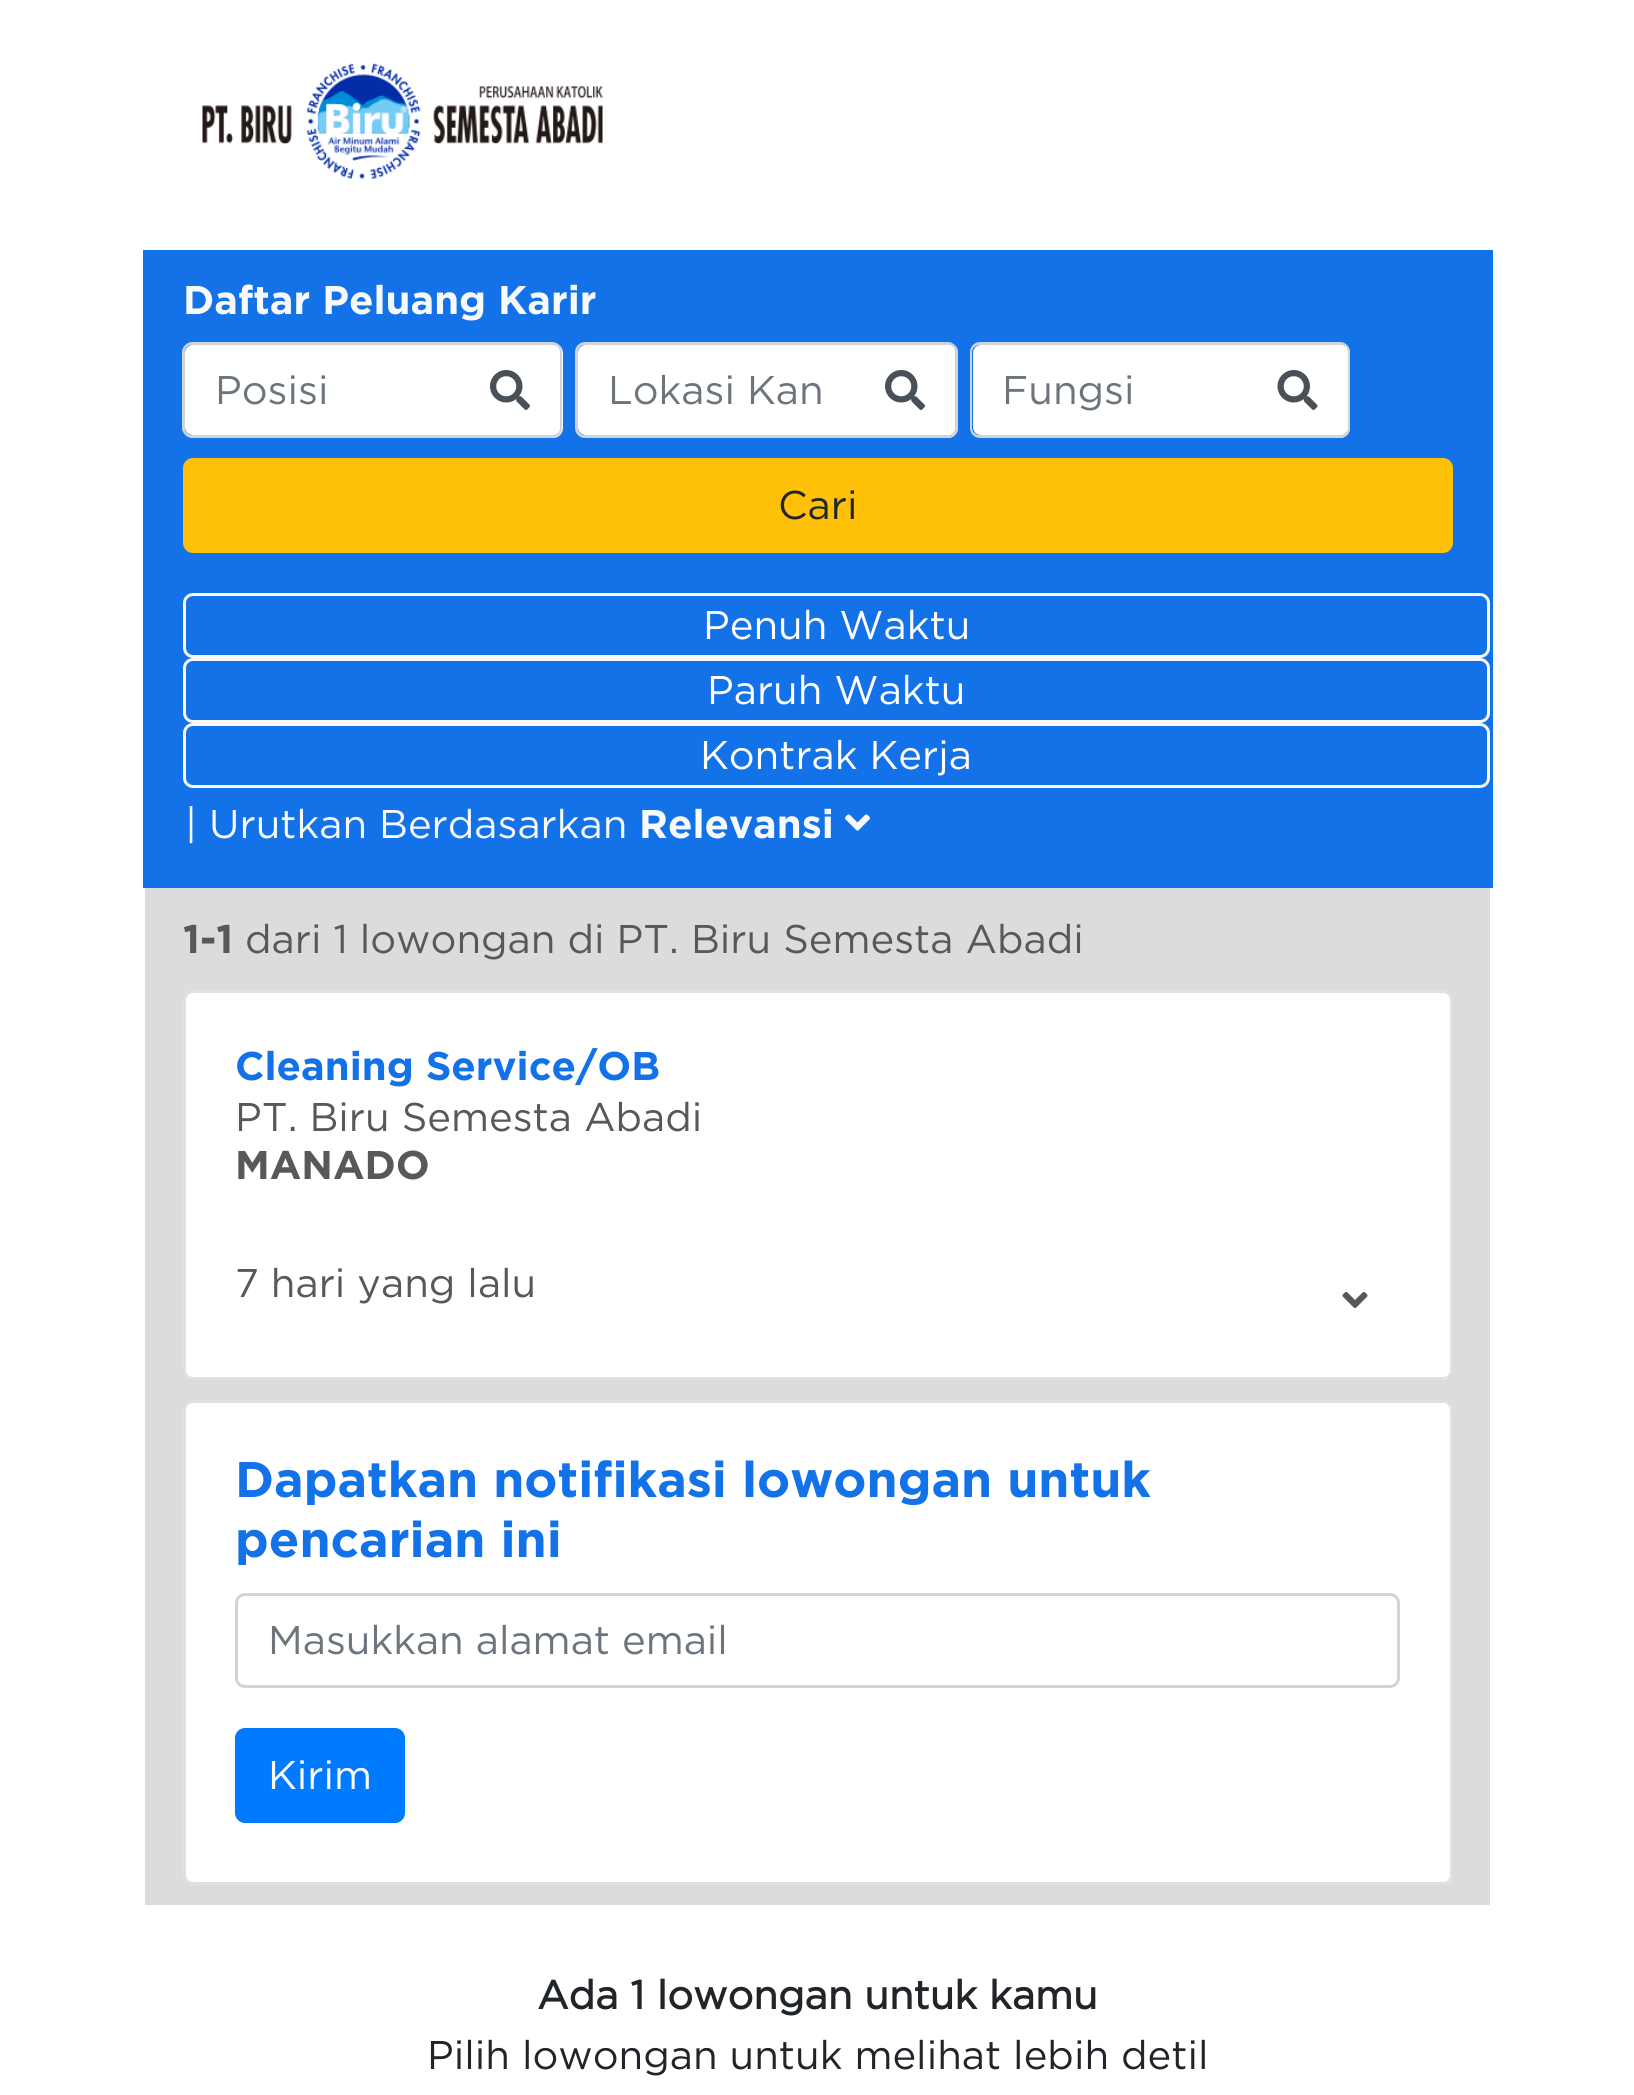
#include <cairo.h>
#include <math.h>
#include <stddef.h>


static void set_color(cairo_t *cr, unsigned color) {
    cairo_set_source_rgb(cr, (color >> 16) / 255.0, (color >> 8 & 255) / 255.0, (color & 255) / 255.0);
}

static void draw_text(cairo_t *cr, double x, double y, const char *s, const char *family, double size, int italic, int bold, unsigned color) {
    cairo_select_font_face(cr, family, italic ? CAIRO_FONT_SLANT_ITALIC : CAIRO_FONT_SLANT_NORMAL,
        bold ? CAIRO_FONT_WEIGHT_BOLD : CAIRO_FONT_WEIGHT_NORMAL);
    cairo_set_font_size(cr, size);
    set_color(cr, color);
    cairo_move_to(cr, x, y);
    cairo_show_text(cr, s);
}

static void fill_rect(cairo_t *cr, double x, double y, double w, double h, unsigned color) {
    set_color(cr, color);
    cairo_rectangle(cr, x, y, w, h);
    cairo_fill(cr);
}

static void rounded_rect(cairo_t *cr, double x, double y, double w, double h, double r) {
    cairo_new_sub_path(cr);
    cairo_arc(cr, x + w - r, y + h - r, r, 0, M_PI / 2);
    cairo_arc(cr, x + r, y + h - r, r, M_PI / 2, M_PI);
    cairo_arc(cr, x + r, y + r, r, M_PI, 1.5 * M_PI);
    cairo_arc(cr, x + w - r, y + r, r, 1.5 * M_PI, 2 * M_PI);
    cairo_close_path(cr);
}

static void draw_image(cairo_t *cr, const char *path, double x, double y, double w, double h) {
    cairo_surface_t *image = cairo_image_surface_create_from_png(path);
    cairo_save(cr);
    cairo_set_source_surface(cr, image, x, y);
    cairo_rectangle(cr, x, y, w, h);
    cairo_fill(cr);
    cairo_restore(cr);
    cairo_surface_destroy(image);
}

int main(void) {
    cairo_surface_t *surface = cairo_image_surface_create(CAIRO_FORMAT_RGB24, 1634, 2095);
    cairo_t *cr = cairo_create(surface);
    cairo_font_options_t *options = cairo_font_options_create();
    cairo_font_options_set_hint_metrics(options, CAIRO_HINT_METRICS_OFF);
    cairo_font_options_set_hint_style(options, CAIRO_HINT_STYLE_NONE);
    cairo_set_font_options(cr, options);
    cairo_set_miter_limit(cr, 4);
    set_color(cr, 0xFFFFFF);
    cairo_paint(cr);
    draw_image(cr, "assets/img1.png", 202, 63, 401, 116);
    fill_rect(cr, 143, 250, 1350, 638, 0x1372E8);
    draw_text(cr, 183, 314, "Daftar Peluang Karir", "Gotham", 40, 0, 1, 0xF8F9FA);
    set_color(cr, 0xFFFFFF);
    cairo_new_path(cr);
    cairo_move_to(cr, 460, 343);
    cairo_line_to(cr, 553, 343);
    cairo_curve_to(cr, 558.5, 343, 563, 347.5, 563, 353);
    cairo_line_to(cr, 563, 428);
    cairo_curve_to(cr, 563, 433.5, 558.5, 438, 553, 438);
    cairo_line_to(cr, 460, 438);
    cairo_close_path(cr);
    cairo_fill(cr);
    set_color(cr, 0xCED4DA);
    cairo_set_fill_rule(cr, CAIRO_FILL_RULE_EVEN_ODD);
    cairo_new_path(cr);
    cairo_move_to(cr, 460, 342);
    cairo_line_to(cr, 552, 342);
    cairo_curve_to(cr, 558, 342, 562, 347, 562, 352);
    cairo_line_to(cr, 562, 428);
    cairo_curve_to(cr, 562, 433, 558, 438, 552, 438);
    cairo_line_to(cr, 460, 438);
    cairo_close_path(cr);
    cairo_move_to(cr, 460, 345);
    cairo_line_to(cr, 552, 345);
    cairo_curve_to(cr, 557, 345, 560, 348, 560, 352);
    cairo_line_to(cr, 560, 428);
    cairo_curve_to(cr, 560, 432, 557, 435, 552, 435);
    cairo_line_to(cr, 460, 435);
    cairo_close_path(cr);
    cairo_fill(cr);
    set_color(cr, 0xFFFFFF);
    cairo_new_path(cr);
    cairo_move_to(cr, 193, 345);
    cairo_line_to(cr, 463, 345);
    cairo_line_to(cr, 463, 435);
    cairo_line_to(cr, 193, 435);
    cairo_curve_to(cr, 188.5, 435, 185, 431.5, 185, 427);
    cairo_line_to(cr, 185, 353);
    cairo_curve_to(cr, 185, 348.5, 188.5, 345, 193, 345);
    cairo_close_path(cr);
    cairo_fill(cr);
    set_color(cr, 0xCED4DA);
    cairo_new_path(cr);
    cairo_move_to(cr, 192, 342);
    cairo_line_to(cr, 462, 342);
    cairo_line_to(cr, 462, 438);
    cairo_line_to(cr, 192, 438);
    cairo_curve_to(cr, 187, 438, 182, 433, 182, 428);
    cairo_line_to(cr, 182, 352);
    cairo_curve_to(cr, 182, 347, 187, 342, 192, 342);
    cairo_close_path(cr);
    cairo_move_to(cr, 192, 345);
    cairo_line_to(cr, 462, 345);
    cairo_line_to(cr, 462, 435);
    cairo_line_to(cr, 192, 435);
    cairo_curve_to(cr, 188, 435, 185, 432, 185, 428);
    cairo_line_to(cr, 185, 352);
    cairo_curve_to(cr, 185, 348, 188, 345, 192, 345);
    cairo_close_path(cr);
    cairo_fill(cr);
    draw_text(cr, 215, 404, "Posisi", "Gotham", 40, 0, 0, 0x6C757D);
    draw_image(cr, "assets/img2.png", 490, 370, 40, 40);
    set_color(cr, 0xFFFFFF);
    cairo_new_path(cr);
    cairo_move_to(cr, 855, 343);
    cairo_line_to(cr, 948, 343);
    cairo_curve_to(cr, 953.5, 343, 958, 347.5, 958, 353);
    cairo_line_to(cr, 958, 428);
    cairo_curve_to(cr, 958, 433.5, 953.5, 438, 948, 438);
    cairo_line_to(cr, 855, 438);
    cairo_close_path(cr);
    cairo_fill(cr);
    set_color(cr, 0xCED4DA);
    cairo_new_path(cr);
    cairo_move_to(cr, 855, 342);
    cairo_line_to(cr, 948, 342);
    cairo_curve_to(cr, 953, 342, 958, 347, 958, 352);
    cairo_line_to(cr, 958, 428);
    cairo_curve_to(cr, 958, 433, 953, 438, 948, 438);
    cairo_line_to(cr, 855, 438);
    cairo_close_path(cr);
    cairo_move_to(cr, 855, 345);
    cairo_line_to(cr, 948, 345);
    cairo_curve_to(cr, 952, 345, 955, 348, 955, 352);
    cairo_line_to(cr, 955, 428);
    cairo_curve_to(cr, 955, 432, 952, 435, 948, 435);
    cairo_line_to(cr, 855, 435);
    cairo_close_path(cr);
    cairo_fill(cr);
    set_color(cr, 0xFFFFFF);
    cairo_new_path(cr);
    cairo_move_to(cr, 586, 345);
    cairo_line_to(cr, 858, 345);
    cairo_line_to(cr, 858, 435);
    cairo_line_to(cr, 586, 435);
    cairo_curve_to(cr, 581.5, 435, 578, 431.5, 578, 427);
    cairo_line_to(cr, 578, 353);
    cairo_curve_to(cr, 578, 348.5, 581.5, 345, 586, 345);
    cairo_close_path(cr);
    cairo_fill(cr);
    set_color(cr, 0xCED4DA);
    cairo_new_path(cr);
    cairo_move_to(cr, 585, 342);
    cairo_line_to(cr, 858, 342);
    cairo_line_to(cr, 858, 438);
    cairo_line_to(cr, 585, 438);
    cairo_curve_to(cr, 579, 438, 575, 433, 575, 428);
    cairo_line_to(cr, 575, 352);
    cairo_curve_to(cr, 575, 347, 579, 342, 585, 342);
    cairo_close_path(cr);
    cairo_move_to(cr, 585, 345);
    cairo_line_to(cr, 858, 345);
    cairo_line_to(cr, 858, 435);
    cairo_line_to(cr, 585, 435);
    cairo_curve_to(cr, 581, 435, 578, 432, 578, 428);
    cairo_line_to(cr, 578, 352);
    cairo_curve_to(cr, 578, 348, 581, 345, 585, 345);
    cairo_close_path(cr);
    cairo_fill(cr);
    draw_text(cr, 608, 404, "Lokasi Kan", "Gotham", 40, 0, 0, 0x6C757D);
    draw_image(cr, "assets/img2.png", 885, 370, 40, 40);
    set_color(cr, 0xFFFFFF);
    cairo_new_path(cr);
    cairo_move_to(cr, 1248, 343);
    cairo_line_to(cr, 1340, 343);
    cairo_curve_to(cr, 1345.5, 343, 1350, 347.5, 1350, 353);
    cairo_line_to(cr, 1350, 428);
    cairo_curve_to(cr, 1350, 433.5, 1345.5, 438, 1340, 438);
    cairo_line_to(cr, 1248, 438);
    cairo_close_path(cr);
    cairo_fill(cr);
    set_color(cr, 0xCED4DA);
    cairo_new_path(cr);
    cairo_move_to(cr, 1248, 342);
    cairo_line_to(cr, 1340, 342);
    cairo_curve_to(cr, 1346, 342, 1350, 347, 1350, 352);
    cairo_line_to(cr, 1350, 428);
    cairo_curve_to(cr, 1350, 433, 1346, 438, 1340, 438);
    cairo_line_to(cr, 1248, 438);
    cairo_close_path(cr);
    cairo_move_to(cr, 1248, 345);
    cairo_line_to(cr, 1340, 345);
    cairo_curve_to(cr, 1344, 345, 1348, 348, 1348, 352);
    cairo_line_to(cr, 1348, 428);
    cairo_curve_to(cr, 1348, 432, 1344, 435, 1340, 435);
    cairo_line_to(cr, 1248, 435);
    cairo_close_path(cr);
    cairo_fill(cr);
    set_color(cr, 0xFFFFFF);
    cairo_new_path(cr);
    cairo_move_to(cr, 981, 345);
    cairo_line_to(cr, 1250, 345);
    cairo_line_to(cr, 1250, 435);
    cairo_line_to(cr, 981, 435);
    cairo_curve_to(cr, 976.5, 435, 973, 431.5, 973, 427);
    cairo_line_to(cr, 973, 353);
    cairo_curve_to(cr, 973, 348.5, 976.5, 345, 981, 345);
    cairo_close_path(cr);
    cairo_fill(cr);
    set_color(cr, 0xCED4DA);
    cairo_new_path(cr);
    cairo_move_to(cr, 980, 342);
    cairo_line_to(cr, 1250, 342);
    cairo_line_to(cr, 1250, 438);
    cairo_line_to(cr, 980, 438);
    cairo_curve_to(cr, 974, 438, 970, 433, 970, 428);
    cairo_line_to(cr, 970, 352);
    cairo_curve_to(cr, 970, 347, 974, 342, 980, 342);
    cairo_close_path(cr);
    cairo_move_to(cr, 980, 345);
    cairo_line_to(cr, 1250, 345);
    cairo_line_to(cr, 1250, 435);
    cairo_line_to(cr, 980, 435);
    cairo_curve_to(cr, 976, 435, 972, 432, 972, 428);
    cairo_line_to(cr, 972, 352);
    cairo_curve_to(cr, 972, 348, 976, 345, 980, 345);
    cairo_close_path(cr);
    cairo_fill(cr);
    draw_text(cr, 1002, 404, "Fungsi", "Gotham", 40, 0, 0, 0x6C757D);
    draw_image(cr, "assets/img3.png", 1277, 370, 41, 40);
    set_color(cr, 0xFFC107);
    rounded_rect(cr, 184.5, 459.5, 1267, 92, 8.5);
    cairo_fill_preserve(cr);
    cairo_set_line_width(cr, 3);
    cairo_stroke(cr);
    draw_text(cr, 778, 519, "Cari", "Gotham", 40, 0, 0, 0x212529);
    rounded_rect(cr, 184.5, 594.5, 1304, 62, 8.5);
    set_color(cr, 0xF8F9FA);
    cairo_stroke(cr);
    draw_text(cr, 703, 639, "Penuh Waktu", "Gotham", 40, 0, 0, 0xFFFFFF);
    rounded_rect(cr, 184.5, 659.5, 1304, 62, 8.5);
    set_color(cr, 0xF8F9FA);
    cairo_stroke(cr);
    draw_text(cr, 707, 704, "Paruh Waktu", "Gotham", 40, 0, 0, 0xFFFFFF);
    rounded_rect(cr, 184.5, 724.5, 1304, 62, 8.5);
    set_color(cr, 0xF8F9FA);
    cairo_stroke(cr);
    draw_text(cr, 700, 769, "Kontrak Kerja", "Gotham", 40, 0, 0, 0xFFFFFF);
    draw_text(cr, 185, 838, "| Urutkan Berdasarkan", "Gotham", 40, 0, 0, 0xF8F9FA);
    draw_text(cr, 639, 838, "Relevansi", "Gotham", 40, 0, 1, 0xF8F9FA);
    draw_image(cr, "assets/img4.png", 845, 814, 25, 17);
    fill_rect(cr, 145, 888, 1345, 1017, 0xDCDCDC);
    draw_text(cr, 183, 953, "1-1", "Gotham", 40, 0, 1, 0x595757);
    draw_text(cr, 245, 953, "dari 1 lowongan di PT. Biru Semesta Abadi", "Gotham", 40, 0, 0, 0x595757);
    set_color(cr, 0xFFFFFF);
    rounded_rect(cr, 183, 990, 1270, 390, 10);
    cairo_fill(cr);
    rounded_rect(cr, 184.5, 991.5, 1267, 387, 8.5);
    cairo_set_source_rgba(cr, 0, 0, 0, 0.12);
    cairo_stroke(cr);
    draw_text(cr, 235, 1080, "Cleaning Service/OB", "Gotham", 40, 0, 1, 0x1372E8);
    draw_text(cr, 235, 1131, "PT. Biru Semesta Abadi", "Gotham", 40, 0, 0, 0x595757);
    draw_text(cr, 235, 1179, "MANADO", "Gotham", 40, 0, 1, 0x595757);
    draw_text(cr, 235, 1297, "7 hari yang lalu", "Gotham", 40, 0, 0, 0x595757);
    draw_image(cr, "assets/img5.png", 1342, 1292, 26, 16);
    set_color(cr, 0xFFFFFF);
    rounded_rect(cr, 183, 1400, 1270, 485, 10);
    cairo_fill(cr);
    rounded_rect(cr, 184.5, 1401.5, 1267, 482, 8.5);
    cairo_set_source_rgba(cr, 0, 0, 0, 0.12);
    cairo_stroke(cr);
    draw_text(cr, 235, 1497, "Dapatkan notifikasi lowongan untuk", "Gotham", 50, 0, 1, 0x1372E8);
    draw_text(cr, 235, 1557, "pencarian ini", "Gotham", 50, 0, 1, 0x1372E8);
    rounded_rect(cr, 236.5, 1594.5, 1162, 92, 8.5);
    set_color(cr, 0xCED4DA);
    cairo_stroke(cr);
    draw_text(cr, 268, 1654, "Masukkan alamat email", "Gotham", 40, 0, 0, 0x6C757D);
    set_color(cr, 0x007BFF);
    rounded_rect(cr, 236.5, 1729.5, 167, 92, 8.5);
    cairo_fill_preserve(cr);
    cairo_stroke(cr);
    draw_text(cr, 268, 1789, "Kirim", "Gotham", 40, 0, 0, 0xFFFFFF);
    draw_text(cr, 537, 2009, "Ada 1 lowongan untuk kamu", "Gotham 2", 40, 0, 1, 0x212529);
    draw_text(cr, 427, 2069, "Pilih lowongan untuk melihat lebih detil", "Gotham", 40, 0, 0, 0x212529);
    cairo_surface_write_to_png(surface, "output.png");
    cairo_font_options_destroy(options);
    cairo_destroy(cr);
    cairo_surface_destroy(surface);
    return 0;
}
